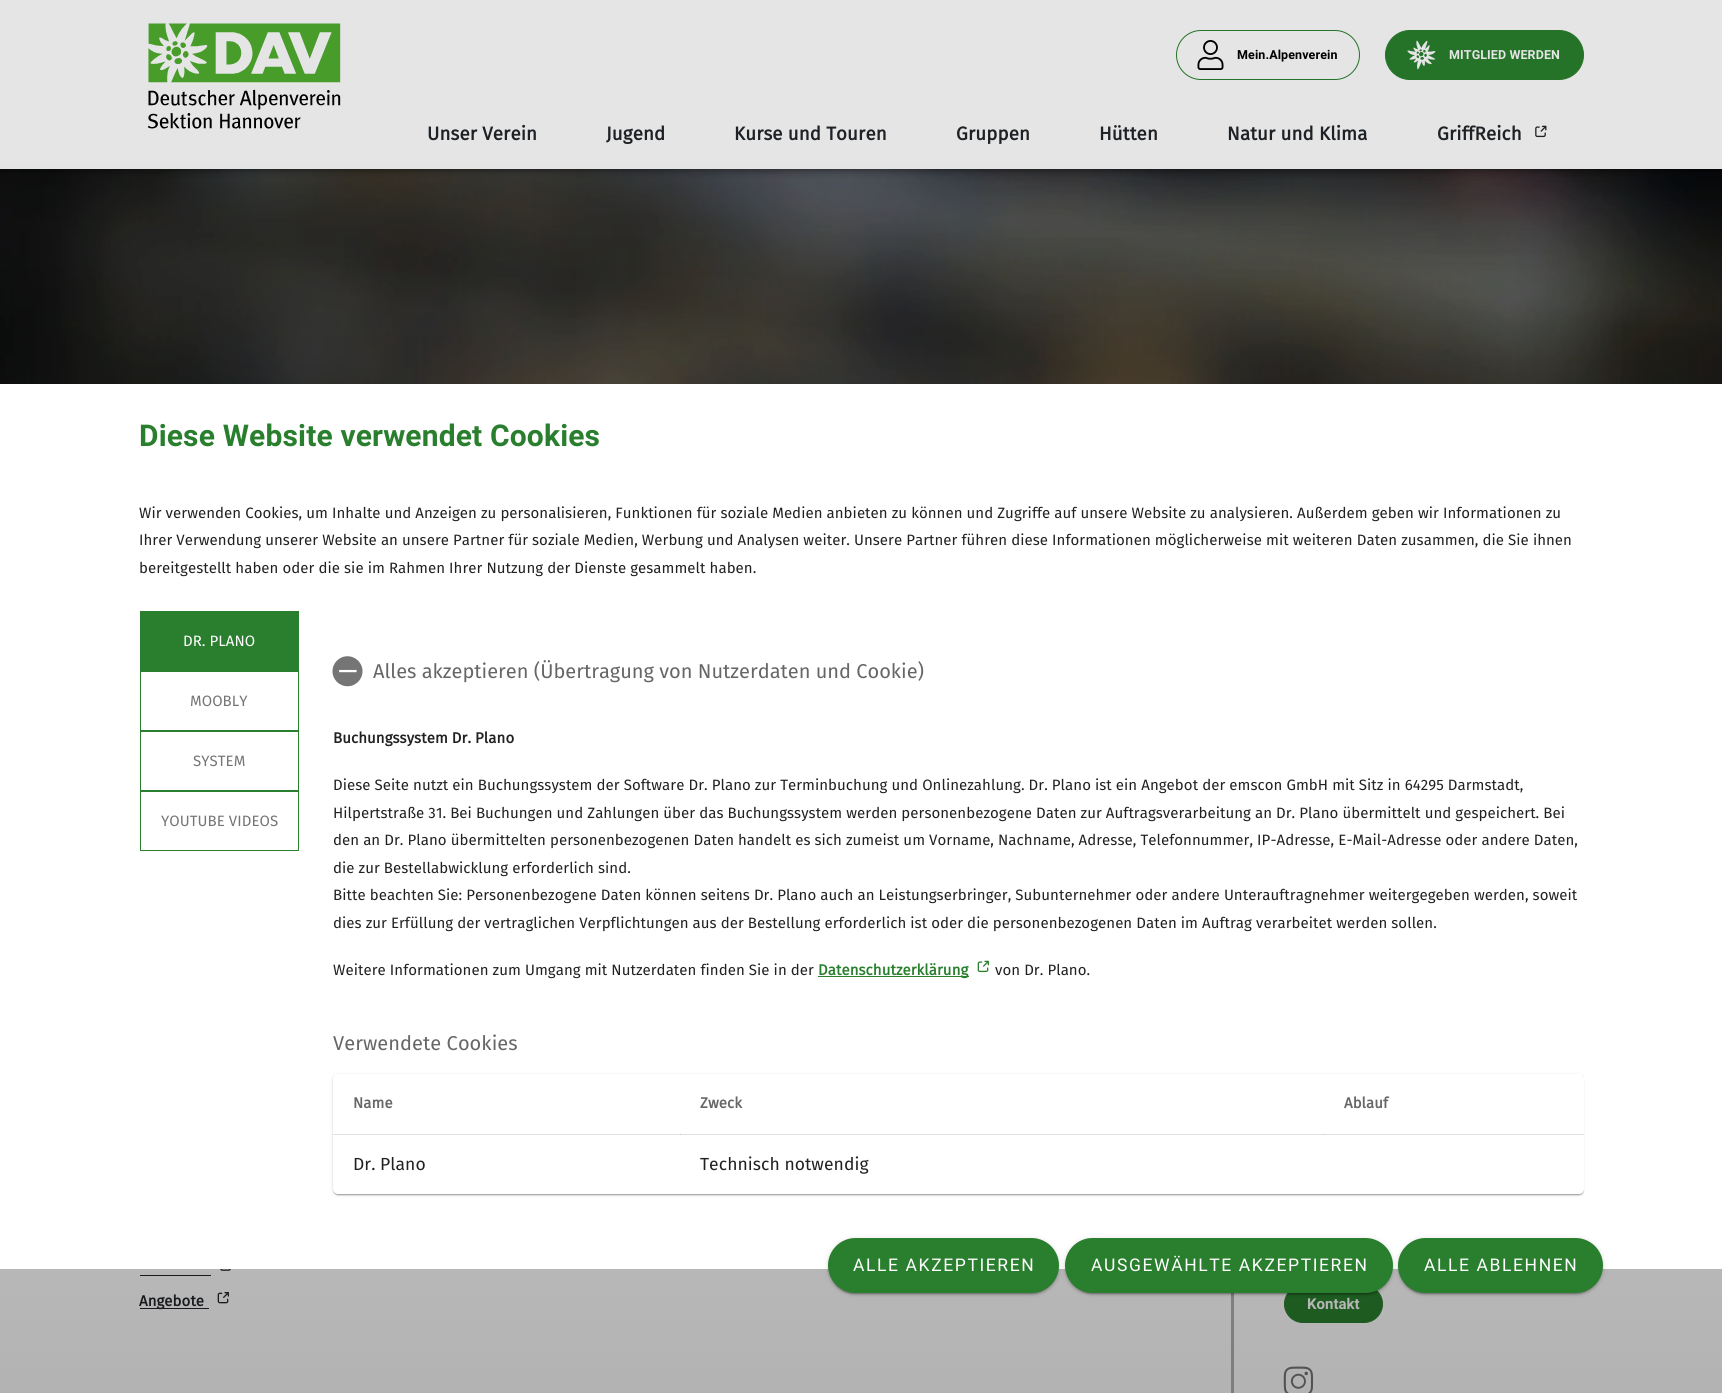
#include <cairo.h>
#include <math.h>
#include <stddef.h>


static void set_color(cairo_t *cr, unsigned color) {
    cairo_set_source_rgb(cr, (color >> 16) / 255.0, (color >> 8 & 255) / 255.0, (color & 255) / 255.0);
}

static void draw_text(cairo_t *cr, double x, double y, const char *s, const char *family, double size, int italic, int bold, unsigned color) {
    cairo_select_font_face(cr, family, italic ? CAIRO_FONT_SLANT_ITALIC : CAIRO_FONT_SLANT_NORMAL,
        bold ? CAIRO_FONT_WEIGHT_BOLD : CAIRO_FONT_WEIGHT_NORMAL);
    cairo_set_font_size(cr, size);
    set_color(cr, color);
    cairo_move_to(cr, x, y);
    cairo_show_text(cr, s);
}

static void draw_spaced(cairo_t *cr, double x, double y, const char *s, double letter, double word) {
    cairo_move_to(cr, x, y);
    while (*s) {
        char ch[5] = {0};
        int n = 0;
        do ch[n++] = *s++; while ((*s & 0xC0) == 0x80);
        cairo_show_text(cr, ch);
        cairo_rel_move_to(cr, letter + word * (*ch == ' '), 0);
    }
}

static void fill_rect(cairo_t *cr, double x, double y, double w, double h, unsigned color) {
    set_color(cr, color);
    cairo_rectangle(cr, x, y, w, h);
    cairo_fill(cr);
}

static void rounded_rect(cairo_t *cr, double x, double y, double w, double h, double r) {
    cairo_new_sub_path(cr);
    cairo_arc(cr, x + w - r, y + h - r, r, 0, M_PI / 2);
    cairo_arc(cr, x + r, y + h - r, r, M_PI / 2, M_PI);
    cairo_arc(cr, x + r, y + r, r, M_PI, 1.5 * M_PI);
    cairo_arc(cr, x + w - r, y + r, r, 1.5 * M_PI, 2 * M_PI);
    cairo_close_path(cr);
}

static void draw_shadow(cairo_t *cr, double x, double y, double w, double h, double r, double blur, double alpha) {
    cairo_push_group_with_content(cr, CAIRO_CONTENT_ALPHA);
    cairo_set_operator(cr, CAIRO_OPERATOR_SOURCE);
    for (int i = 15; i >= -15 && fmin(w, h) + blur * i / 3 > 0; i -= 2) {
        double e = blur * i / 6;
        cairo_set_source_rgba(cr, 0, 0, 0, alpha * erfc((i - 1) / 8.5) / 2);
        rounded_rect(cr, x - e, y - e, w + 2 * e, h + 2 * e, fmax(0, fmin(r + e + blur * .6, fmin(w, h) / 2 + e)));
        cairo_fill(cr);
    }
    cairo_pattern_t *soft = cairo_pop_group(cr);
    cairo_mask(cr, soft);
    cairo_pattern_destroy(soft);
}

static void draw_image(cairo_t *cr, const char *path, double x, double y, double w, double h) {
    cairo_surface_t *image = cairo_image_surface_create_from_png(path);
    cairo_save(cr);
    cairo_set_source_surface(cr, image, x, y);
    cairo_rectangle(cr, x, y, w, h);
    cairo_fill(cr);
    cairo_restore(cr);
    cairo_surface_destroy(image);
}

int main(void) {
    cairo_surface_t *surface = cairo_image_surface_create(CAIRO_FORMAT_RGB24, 1722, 1393);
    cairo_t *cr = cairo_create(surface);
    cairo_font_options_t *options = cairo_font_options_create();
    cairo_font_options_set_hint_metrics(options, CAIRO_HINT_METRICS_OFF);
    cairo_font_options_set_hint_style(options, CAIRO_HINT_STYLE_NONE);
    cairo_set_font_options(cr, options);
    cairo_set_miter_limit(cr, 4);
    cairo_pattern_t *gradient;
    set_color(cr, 0xFFFFFF);
    cairo_paint(cr);
    draw_image(cr, "assets/img5.png", 0, 169, 1722, 215);
    set_color(cr, 0x000000);
    draw_shadow(cr, 0, 1, 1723, 169, 0, 6, 0.1);
    draw_shadow(cr, 0, 5, 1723, 169, 0, 3, 0.1);
    draw_shadow(cr, 1, 4, 1720, 166, 0, 2.5, 0.3);
    fill_rect(cr, 0, 0, 1722, 169, 0xFFFFFF);
    draw_image(cr, "assets/img1.png", 147, 23, 194, 106);
    rounded_rect(cr, 1176.5, 30.5, 183, 49, 24.5);
    set_color(cr, 0x297F2E);
    cairo_set_line_width(cr, 1);
    cairo_stroke(cr);
    draw_image(cr, "assets/img2.png", 1197, 40, 27, 30);
    cairo_select_font_face(cr, "Roboto", CAIRO_FONT_SLANT_NORMAL, CAIRO_FONT_WEIGHT_BOLD);
    cairo_set_font_size(cr, 12.5);
    set_color(cr, 0x000000);
    draw_spaced(cr, 1237, 59, "Mein.Alpenverein", 0.1, 0);
    set_color(cr, 0x297F2E);
    rounded_rect(cr, 1385.5, 30.5, 198, 49, 24.5);
    cairo_fill_preserve(cr);
    cairo_stroke(cr);
    draw_image(cr, "assets/img3.png", 1407, 40, 29, 30);
    set_color(cr, 0xFFFFFF);
    draw_spaced(cr, 1449, 59, "MITGLIED WERDEN", 0.1, 0);
    cairo_select_font_face(cr, "Fira Sans", CAIRO_FONT_SLANT_NORMAL, CAIRO_FONT_WEIGHT_BOLD);
    cairo_set_font_size(cr, 18.75);
    set_color(cr, 0x212529);
    draw_spaced(cr, 427, 140, "Unser Verein", 0.1, 0);
    draw_spaced(cr, 606, 140, "Jugend", 0.1, 0);
    draw_spaced(cr, 734, 140, "Kurse und Touren", 0.1, 0);
    draw_spaced(cr, 956, 140, "Gruppen", 0.1, 0);
    draw_spaced(cr, 1099, 140, "Hütten", 0.1, 0);
    draw_spaced(cr, 1227, 140, "Natur und Klima", 0.1, 0);
    draw_spaced(cr, 1437, 140, "GriffReich", 0.1, 0);
    draw_image(cr, "assets/img4.png", 1535, 125, 12, 13);
    draw_image(cr, "assets/img8.png", 220, 1269, 11, 2);
    fill_rect(cr, 140, 1275, 71, 1, 0x212529);
    fill_rect(cr, 140, 1308, 69, 1, 0x212529);
    cairo_set_font_size(cr, 15);
    draw_spaced(cr, 139, 1306, "Angebote", 0.06, 0);
    draw_image(cr, "assets/img9.png", 217, 1292, 12, 12);
    fill_rect(cr, 1231, 1293, 3, 100, 0xB3B3B3);
    set_color(cr, 0x297F2E);
    rounded_rect(cr, 1284.5, 1285.5, 98, 37, 18.5);
    cairo_fill_preserve(cr);
    cairo_stroke(cr);
    draw_text(cr, 1307, 1309, "Kontakt", "Roboto", 15, 0, 1, 0xFFFFFF);
    draw_image(cr, "assets/img10.png", 1283, 1366, 31, 27);
    gradient = cairo_pattern_create_linear(861, 0, 861, 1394);
    cairo_pattern_add_color_stop_rgba(gradient, 0.1, 0, 0, 0, 0.1);
    cairo_pattern_add_color_stop_rgba(gradient, 1, 0, 0, 0, 0.3);
    cairo_set_source(cr, gradient);
    cairo_pattern_destroy(gradient);
    cairo_rectangle(cr, 0, 0, 1722, 1393);
    cairo_fill(cr);
    fill_rect(cr, 0, 384, 1722, 885, 0xFFFFFF);
    cairo_set_font_size(cr, 30);
    set_color(cr, 0x297F2E);
    draw_spaced(cr, 139, 446, "Diese Website verwendet Cookies", 0.15, 0);
    cairo_select_font_face(cr, "Fira Sans", CAIRO_FONT_SLANT_NORMAL, CAIRO_FONT_WEIGHT_NORMAL);
    cairo_set_font_size(cr, 15);
    set_color(cr, 0x212121);
    draw_spaced(cr, 139, 518, "Wir verwenden Cookies, um Inhalte und Anzeigen zu personalisieren, Funktionen für soziale Medien anbieten zu können und Zugriffe auf unsere Website zu analysieren. Außerdem geben wir Informationen zu", 0.06, 0);
    draw_spaced(cr, 139, 545, "Ihrer Verwendung unserer Website an unsere Partner für soziale Medien, Werbung und Analysen weiter. Unsere Partner führen diese Informationen möglicherweise mit weiteren Daten zusammen, die Sie ihnen", 0.06, 0);
    draw_spaced(cr, 139, 573, "bereitgestellt haben oder die sie im Rahmen Ihrer Nutzung der Dienste gesammelt haben.", 0.06, 0);
    fill_rect(cr, 140, 611, 159, 60, 0x297F2E);
    set_color(cr, 0xFFFFFF);
    draw_spaced(cr, 183, 646, "DR. PLANO", 0.06, 0);
    cairo_rectangle(cr, 140.5, 671.5, 158, 59);
    set_color(cr, 0x297F2E);
    cairo_stroke(cr);
    set_color(cr, 0x757575);
    draw_spaced(cr, 190, 706, "MOOBLY", 0.06, 0);
    cairo_rectangle(cr, 140.5, 731.5, 158, 59);
    set_color(cr, 0x297F2E);
    cairo_stroke(cr);
    set_color(cr, 0x757575);
    draw_spaced(cr, 193, 766, "SYSTEM", 0.06, 0);
    cairo_rectangle(cr, 140.5, 791.5, 158, 59);
    set_color(cr, 0x297F2E);
    cairo_stroke(cr);
    set_color(cr, 0x757575);
    draw_spaced(cr, 161, 826, "YOUTUBE VIDEOS", 0.06, 0);
    draw_image(cr, "assets/img6.png", 332, 656, 31, 31);
    draw_text(cr, 373, 678, "Alles akzeptieren (Übertragung von Nutzerdaten und Cookie)", "Fira Sans", 20, 0, 0, 0x666666);
    cairo_select_font_face(cr, "Fira Sans", CAIRO_FONT_SLANT_NORMAL, CAIRO_FONT_WEIGHT_BOLD);
    cairo_set_font_size(cr, 15);
    set_color(cr, 0x212121);
    draw_spaced(cr, 333, 743, "Buchungssystem Dr. Plano", 0.06, 0);
    cairo_select_font_face(cr, "Fira Sans", CAIRO_FONT_SLANT_NORMAL, CAIRO_FONT_WEIGHT_NORMAL);
    draw_spaced(cr, 333, 790, "Diese Seite nutzt ein Buchungssystem der Software Dr. Plano zur Terminbuchung und Onlinezahlung. Dr. Plano ist ein Angebot der emscon GmbH mit Sitz in 64295 Darmstadt,", 0.06, 0);
    draw_spaced(cr, 333, 818, "Hilpertstraße 31. Bei Buchungen und Zahlungen über das Buchungssystem werden personenbezogene Daten zur Auftragsverarbeitung an Dr. Plano übermittelt und gespeichert. Bei", 0.06, 0);
    draw_spaced(cr, 333, 845, "den an Dr. Plano übermittelten personenbezogenen Daten handelt es sich zumeist um Vorname, Nachname, Adresse, Telefonnummer, IP-Adresse, E-Mail-Adresse oder andere Daten,", 0.06, 0);
    draw_spaced(cr, 333, 873, "die zur Bestellabwicklung erforderlich sind.", 0.06, 0);
    draw_spaced(cr, 333, 900, "Bitte beachten Sie: Personenbezogene Daten können seitens Dr. Plano auch an Leistungserbringer, Subunternehmer oder andere Unterauftragnehmer weitergegeben werden, soweit", 0.06, 0);
    draw_spaced(cr, 333, 928, "dies zur Erfüllung der vertraglichen Verpflichtungen aus der Bestellung erforderlich ist oder die personenbezogenen Daten im Auftrag verarbeitet werden sollen.", 0.06, 0);
    draw_spaced(cr, 333, 975, "Weitere Informationen zum Umgang mit Nutzerdaten finden Sie in der", 0.06, 0);
    fill_rect(cr, 818, 976, 151, 1, 0x297F2E);
    cairo_select_font_face(cr, "Fira Sans", CAIRO_FONT_SLANT_NORMAL, CAIRO_FONT_WEIGHT_BOLD);
    draw_spaced(cr, 818, 975, "Datenschutzerklärung", 0.06, 0);
    draw_image(cr, "assets/img7.png", 977, 960, 12, 13);
    cairo_select_font_face(cr, "Fira Sans", CAIRO_FONT_SLANT_NORMAL, CAIRO_FONT_WEIGHT_NORMAL);
    set_color(cr, 0x212121);
    draw_spaced(cr, 995, 975, "von Dr. Plano.", 0.06, 0);
    cairo_set_font_size(cr, 20);
    set_color(cr, 0x666666);
    draw_spaced(cr, 333, 1050, "Verwendete Cookies", 0.06, 0);
    cairo_save(cr);
    cairo_rectangle(cr, 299, 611, 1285, 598);
    cairo_clip(cr);
    set_color(cr, 0x000000);
    draw_shadow(cr, 333, 1075, 1251, 120, 5, 2, 0.12);
    cairo_restore(cr);
    set_color(cr, 0x000000);
    draw_shadow(cr, 333, 1075, 1251, 120, 5, 0.5, 0.14);
    draw_shadow(cr, 334, 1078, 1249, 117, 4, 0.5, 0.2);
    set_color(cr, 0xFFFFFF);
    rounded_rect(cr, 333, 1074, 1251, 120, 5);
    cairo_fill(cr);
    fill_rect(cr, 1323, 1134, 261, 1, 0xE0E0E0);
    cairo_set_source_rgba(cr, 0, 0, 0, 0.12);
    cairo_rectangle(cr, 680, 1134, 644, 1);
    cairo_fill(cr);
    cairo_rectangle(cr, 333, 1134, 348, 1);
    cairo_fill(cr);
    cairo_select_font_face(cr, "Fira Sans", CAIRO_FONT_SLANT_NORMAL, CAIRO_FONT_WEIGHT_BOLD);
    cairo_set_font_size(cr, 15);
    set_color(cr, 0x666666);
    draw_spaced(cr, 353, 1108, "Name", 0.06, 0);
    draw_spaced(cr, 700, 1108, "Zweck", 0.06, 0);
    draw_spaced(cr, 1344, 1108, "Ablauf", 0.06, 0);
    cairo_select_font_face(cr, "Fira Sans", CAIRO_FONT_SLANT_NORMAL, CAIRO_FONT_WEIGHT_NORMAL);
    cairo_set_font_size(cr, 17.5);
    set_color(cr, 0x212121);
    draw_spaced(cr, 353, 1170, "Dr. Plano", 0.06, 0);
    draw_spaced(cr, 700, 1170, "Technisch notwendig", 0.06, 0);
    set_color(cr, 0x000000);
    draw_shadow(cr, 828, 1239, 231, 55, 27.5, 3, 0.12);
    draw_shadow(cr, 828, 1240, 231, 55, 27.5, 1, 0.14);
    draw_shadow(cr, 830, 1244, 226, 50, 25, 0.5, 0.2);
    set_color(cr, 0x297F2E);
    rounded_rect(cr, 828, 1238, 231, 55, 27.5);
    cairo_fill(cr);
    cairo_select_font_face(cr, "Roboto", CAIRO_FONT_SLANT_NORMAL, CAIRO_FONT_WEIGHT_NORMAL);
    set_color(cr, 0xFFFFFF);
    draw_spaced(cr, 853, 1271, "ALLE AKZEPTIEREN", 1.6, 0);
    set_color(cr, 0x000000);
    draw_shadow(cr, 1065, 1239, 328, 55, 27.5, 3, 0.12);
    draw_shadow(cr, 1065, 1240, 328, 55, 27.5, 1, 0.14);
    draw_shadow(cr, 1068, 1244, 322, 50, 25, 0.5, 0.2);
    set_color(cr, 0x297F2E);
    rounded_rect(cr, 1065, 1238, 328, 55, 27.5);
    cairo_fill(cr);
    set_color(cr, 0xFFFFFF);
    draw_spaced(cr, 1091, 1271, "AUSGEWÄHLTE AKZEPTIEREN", 1.6, 0);
    set_color(cr, 0x000000);
    draw_shadow(cr, 1398, 1239, 205, 55, 27.5, 3, 0.12);
    draw_shadow(cr, 1398, 1240, 205, 55, 27.5, 1, 0.14);
    draw_shadow(cr, 1400, 1244, 200, 50, 25, 0.5, 0.2);
    set_color(cr, 0x297F2E);
    rounded_rect(cr, 1398, 1238, 205, 55, 27.5);
    cairo_fill(cr);
    set_color(cr, 0xFFFFFF);
    draw_spaced(cr, 1424, 1271, "ALLE ABLEHNEN", 1.6, 0);
    cairo_surface_write_to_png(surface, "output.png");
    cairo_font_options_destroy(options);
    cairo_destroy(cr);
    cairo_surface_destroy(surface);
    return 0;
}
